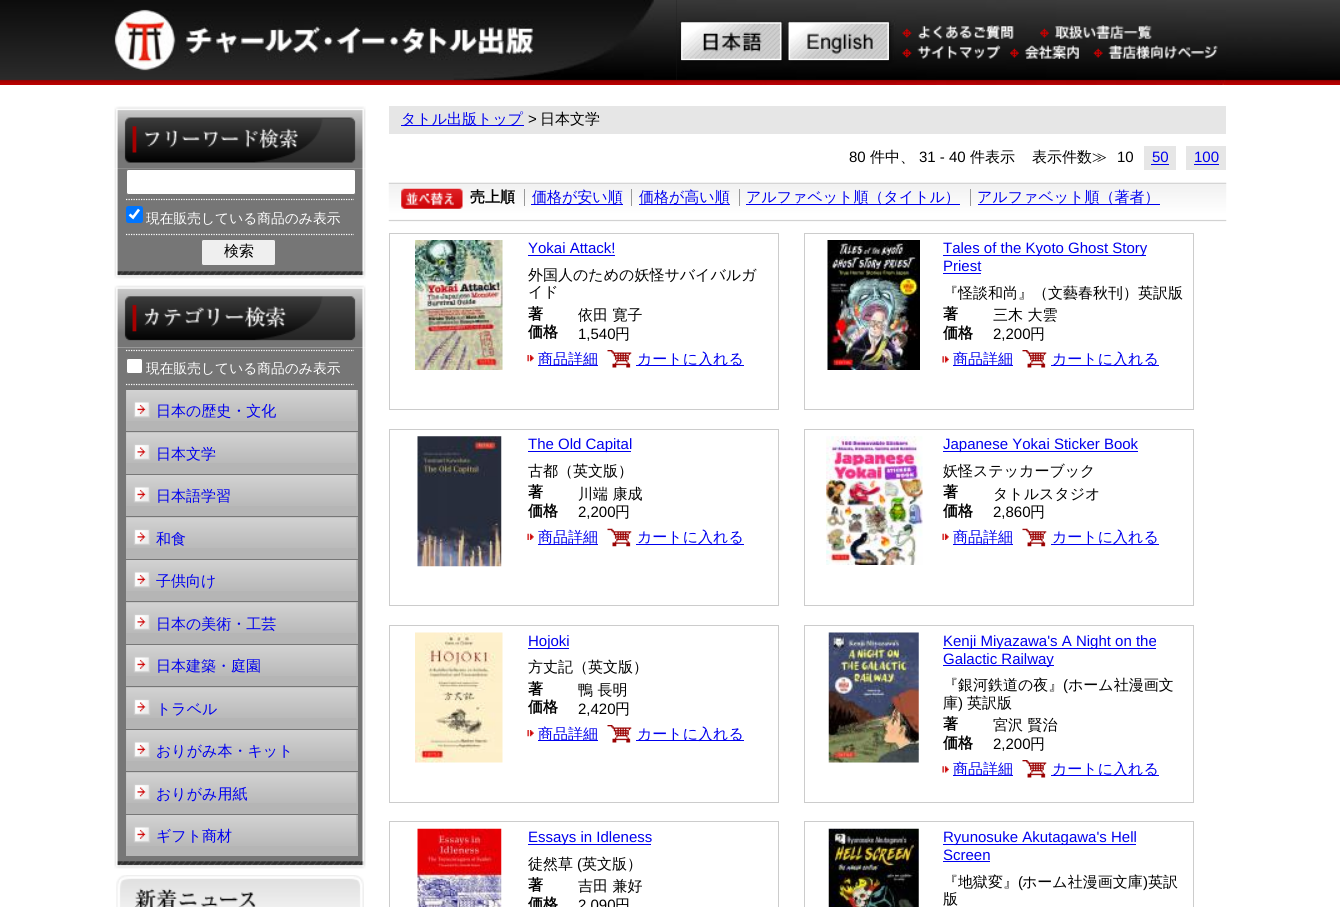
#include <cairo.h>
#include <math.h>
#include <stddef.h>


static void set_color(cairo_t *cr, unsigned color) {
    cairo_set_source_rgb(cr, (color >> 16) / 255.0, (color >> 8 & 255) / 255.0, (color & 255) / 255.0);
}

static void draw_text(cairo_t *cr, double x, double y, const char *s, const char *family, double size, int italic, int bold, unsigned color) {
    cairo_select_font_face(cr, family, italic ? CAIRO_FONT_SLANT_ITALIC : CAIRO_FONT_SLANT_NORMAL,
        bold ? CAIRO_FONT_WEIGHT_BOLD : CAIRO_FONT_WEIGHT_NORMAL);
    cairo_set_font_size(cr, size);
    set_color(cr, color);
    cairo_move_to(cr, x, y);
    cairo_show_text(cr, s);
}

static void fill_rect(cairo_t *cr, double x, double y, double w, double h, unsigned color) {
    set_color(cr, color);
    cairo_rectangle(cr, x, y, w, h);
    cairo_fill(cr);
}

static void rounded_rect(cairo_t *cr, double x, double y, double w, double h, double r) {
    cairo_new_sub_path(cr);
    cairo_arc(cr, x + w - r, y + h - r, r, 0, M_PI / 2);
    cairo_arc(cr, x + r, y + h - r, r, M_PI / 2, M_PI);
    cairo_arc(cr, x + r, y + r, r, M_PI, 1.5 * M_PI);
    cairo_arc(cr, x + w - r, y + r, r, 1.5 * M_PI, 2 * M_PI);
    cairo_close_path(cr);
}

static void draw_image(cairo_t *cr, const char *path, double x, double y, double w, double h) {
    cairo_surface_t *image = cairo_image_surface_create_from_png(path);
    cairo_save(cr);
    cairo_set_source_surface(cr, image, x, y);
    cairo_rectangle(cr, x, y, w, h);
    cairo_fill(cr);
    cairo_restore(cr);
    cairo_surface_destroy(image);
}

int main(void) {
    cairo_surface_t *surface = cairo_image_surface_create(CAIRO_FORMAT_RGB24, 1340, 907);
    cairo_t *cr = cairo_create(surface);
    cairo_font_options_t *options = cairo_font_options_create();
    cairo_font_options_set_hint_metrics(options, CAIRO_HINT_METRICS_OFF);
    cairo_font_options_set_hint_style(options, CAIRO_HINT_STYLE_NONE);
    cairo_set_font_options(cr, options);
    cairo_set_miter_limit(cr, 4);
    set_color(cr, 0xFFFFFF);
    cairo_paint(cr);
    draw_image(cr, "assets/img1.png", 0, 0, 1340, 85);
    draw_image(cr, "assets/img2.png", 114, 0, 563, 81);
    draw_image(cr, "assets/img3.png", 676, 0, 550, 85);
    draw_image(cr, "assets/img4.png", 681, 22, 101, 38);
    draw_image(cr, "assets/img5.png", 788, 22, 101, 38);
    draw_image(cr, "assets/img6.png", 902, 25, 112, 14);
    draw_image(cr, "assets/img7.png", 1040, 25, 112, 14);
    draw_image(cr, "assets/img8.png", 902, 45, 99, 14);
    draw_image(cr, "assets/img9.png", 1010, 45, 69, 14);
    draw_image(cr, "assets/img10.png", 1093, 45, 125, 14);
    draw_image(cr, "assets/img12.png", 114, 168, 252, 111);
    draw_image(cr, "assets/img11.png", 114, 106, 252, 63);
    set_color(cr, 0xFFFFFF);
    rounded_rect(cr, 126.5, 169.5, 229, 25, 2);
    cairo_fill_preserve(cr);
    set_color(cr, 0x767676);
    cairo_set_line_width(cr, 1);
    cairo_stroke(cr);
    cairo_new_path(cr);
    cairo_move_to(cr, 126, 199.5);
    cairo_line_to(cr, 354, 199.5);
    set_color(cr, 0xFFFFFF);
    cairo_set_line_width(cr, 1.2);
    cairo_set_dash(cr, (double[]){1.25, 1.25}, 2, 0);
    cairo_stroke(cr);
    cairo_new_path(cr);
    cairo_move_to(cr, 126, 234.5);
    cairo_line_to(cr, 354, 234.5);
    cairo_stroke(cr);
    set_color(cr, 0x0075FF);
    rounded_rect(cr, 126, 206, 17, 17, 2.5);
    cairo_fill(cr);
    cairo_new_path(cr);
    cairo_move_to(cr, 129.5, 214.5);
    cairo_line_to(cr, 133, 217.5);
    cairo_line_to(cr, 139, 209.5);
    set_color(cr, 0xFFFFFF);
    cairo_set_line_width(cr, 2.6);
    cairo_set_dash(cr, NULL, 0, 0);
    cairo_stroke(cr);
    draw_text(cr, 146, 223, "現在販売している商品のみ表示", "WenQuanYi Zen Hei Medium", 13.75, 0, 0, 0xFFFFFF);
    set_color(cr, 0xEFEFEF);
    rounded_rect(cr, 201.5, 239.5, 74, 26, 2);
    cairo_fill_preserve(cr);
    set_color(cr, 0x767676);
    cairo_set_line_width(cr, 1);
    cairo_stroke(cr);
    draw_text(cr, 224, 256, "検索", "WenQuanYi Zen Hei Medium", 15, 0, 0, 0x000000);
    draw_image(cr, "assets/img14.png", 114, 347, 252, 522);
    draw_image(cr, "assets/img13.png", 114, 285, 252, 63);
    cairo_new_path(cr);
    cairo_move_to(cr, 126, 350.5);
    cairo_line_to(cr, 354, 350.5);
    set_color(cr, 0xFFFFFF);
    cairo_set_line_width(cr, 1.2);
    cairo_set_dash(cr, (double[]){1.25, 1.25}, 2, 0);
    cairo_stroke(cr);
    cairo_new_path(cr);
    cairo_move_to(cr, 126, 384.5);
    cairo_line_to(cr, 354, 384.5);
    cairo_stroke(cr);
    rounded_rect(cr, 126.5, 358.5, 16, 15, 2);
    cairo_fill_preserve(cr);
    set_color(cr, 0x767676);
    cairo_set_line_width(cr, 1);
    cairo_set_dash(cr, NULL, 0, 0);
    cairo_stroke(cr);
    draw_text(cr, 146, 373, "現在販売している商品のみ表示", "WenQuanYi Zen Hei Medium", 13.75, 0, 0, 0xFFFFFF);
    fill_rect(cr, 126, 390, 232, 41, 0xB5B5B5);
    draw_image(cr, "assets/img15.png", 126, 390, 231, 31);
    draw_text(cr, 156, 416, "日本の歴史・文化", "WenQuanYi Zen Hei Medium", 15, 0, 0, 0x0000EE);
    fill_rect(cr, 126, 432, 232, 42, 0xB5B5B5);
    draw_image(cr, "assets/img16.png", 126, 432, 231, 31);
    draw_text(cr, 156, 459, "日本文学", "WenQuanYi Zen Hei Medium", 15, 0, 0, 0x0000EE);
    fill_rect(cr, 126, 475, 232, 41, 0xB5B5B5);
    draw_image(cr, "assets/img15.png", 126, 475, 231, 31);
    draw_text(cr, 156, 501, "日本語学習", "WenQuanYi Zen Hei Medium", 15, 0, 0, 0x0000EE);
    fill_rect(cr, 126, 517, 232, 42, 0xB5B5B5);
    draw_image(cr, "assets/img16.png", 126, 517, 231, 31);
    draw_text(cr, 156, 544, "和食", "WenQuanYi Zen Hei Medium", 15, 0, 0, 0x0000EE);
    fill_rect(cr, 126, 560, 232, 41, 0xB5B5B5);
    draw_image(cr, "assets/img15.png", 126, 560, 231, 31);
    draw_text(cr, 156, 586, "子供向け", "WenQuanYi Zen Hei Medium", 15, 0, 0, 0x0000EE);
    fill_rect(cr, 126, 602, 232, 42, 0xB5B5B5);
    draw_image(cr, "assets/img16.png", 126, 602, 231, 31);
    draw_text(cr, 156, 629, "日本の美術・工芸", "WenQuanYi Zen Hei Medium", 15, 0, 0, 0x0000EE);
    fill_rect(cr, 126, 645, 232, 41, 0xB5B5B5);
    draw_image(cr, "assets/img15.png", 126, 645, 231, 31);
    draw_text(cr, 156, 671, "日本建築・庭園", "WenQuanYi Zen Hei Medium", 15, 0, 0, 0x0000EE);
    fill_rect(cr, 126, 687, 232, 42, 0xB5B5B5);
    draw_image(cr, "assets/img16.png", 126, 687, 231, 31);
    draw_text(cr, 156, 714, "トラベル", "WenQuanYi Zen Hei Medium", 15, 0, 0, 0x0000EE);
    fill_rect(cr, 126, 730, 232, 41, 0xB5B5B5);
    draw_image(cr, "assets/img15.png", 126, 730, 231, 31);
    draw_text(cr, 156, 756, "おりがみ本・キット", "WenQuanYi Zen Hei Medium", 15, 0, 0, 0x0000EE);
    fill_rect(cr, 126, 772, 232, 42, 0xB5B5B5);
    draw_image(cr, "assets/img17.png", 126, 772, 231, 31);
    draw_text(cr, 156, 799, "おりがみ用紙", "WenQuanYi Zen Hei Medium", 15, 0, 0, 0x0000EE);
    fill_rect(cr, 126, 815, 232, 41, 0xB5B5B5);
    draw_image(cr, "assets/img15.png", 126, 815, 231, 31);
    draw_text(cr, 156, 841, "ギフト商材", "WenQuanYi Zen Hei Medium", 15, 0, 0, 0x0000EE);
    draw_image(cr, "assets/img18.png", 116, 875, 248, 32);
    fill_rect(cr, 389, 106, 837, 28, 0xE6E6E6);
    fill_rect(cr, 401, 125, 123, 1, 0x0000EE);
    draw_text(cr, 401, 124, "タトル出版トップ", "WenQuanYi Zen Hei Medium", 15, 0, 0, 0x0000EE);
    draw_text(cr, 528, 124, ">", "Liberation Sans", 15, 0, 0, 0x000000);
    draw_text(cr, 540, 124, "日本文学", "WenQuanYi Zen Hei Medium", 15, 0, 0, 0x000000);
    draw_text(cr, 849, 162, "80", "Liberation Sans", 15, 0, 0, 0x000000);
    draw_text(cr, 870, 162, "件中、", "WenQuanYi Zen Hei Medium", 15, 0, 0, 0x000000);
    draw_text(cr, 919, 162, "31 - 40", "Liberation Sans", 15, 0, 0, 0x000000);
    draw_text(cr, 970, 162, "件表示", "WenQuanYi Zen Hei Medium", 15, 0, 0, 0x000000);
    draw_text(cr, 1032, 162, "表示件数≫", "WenQuanYi Zen Hei Medium", 15, 0, 0, 0x000000);
    draw_text(cr, 1117, 162, "10", "Liberation Sans", 15, 0, 0, 0x000000);
    fill_rect(cr, 1144, 146, 32, 24, 0xE6E6E6);
    draw_text(cr, 1152, 162, "50", "Liberation Sans", 15, 0, 0, 0x0000EE);
    fill_rect(cr, 1151, 164, 18, 1, 0x0000EE);
    fill_rect(cr, 1186, 146, 40, 24, 0xE6E6E6);
    draw_text(cr, 1194, 162, "100", "Liberation Sans", 15, 0, 0, 0x0000EE);
    fill_rect(cr, 1194, 164, 25, 1, 0x0000EE);
    draw_image(cr, "assets/img19.png", 388, 182, 839, 40);
    draw_image(cr, "assets/img20.png", 401, 188, 62, 21);
    draw_text(cr, 470, 202, "売上順", "WenQuanYi Zen Hei", 15, 0, 1, 0x000000);
    fill_rect(cr, 531, 204, 92, 1, 0x0000EE);
    draw_text(cr, 532, 202, "価格が安い順", "WenQuanYi Zen Hei Medium", 15, 0, 0, 0x0000EE);
    fill_rect(cr, 524, 189, 1, 17, 0x999999);
    fill_rect(cr, 639, 204, 91, 1, 0x0000EE);
    draw_text(cr, 639, 202, "価格が高い順", "WenQuanYi Zen Hei Medium", 15, 0, 0, 0x0000EE);
    fill_rect(cr, 631, 189, 1, 17, 0x999999);
    fill_rect(cr, 746, 204, 214, 1, 0x0000EE);
    draw_text(cr, 746, 202, "アルファベット順（タイトル）", "WenQuanYi Zen Hei Medium", 15, 0, 0, 0x0000EE);
    fill_rect(cr, 739, 189, 1, 17, 0x999999);
    fill_rect(cr, 978, 204, 182, 1, 0x0000EE);
    draw_text(cr, 977, 202, "アルファベット順（著者）", "WenQuanYi Zen Hei Medium", 15, 0, 0, 0x0000EE);
    fill_rect(cr, 970, 189, 1, 17, 0x999999);
    cairo_rectangle(cr, 389.5, 233.5, 389, 176);
    set_color(cr, 0xCCCCCC);
    cairo_stroke(cr);
    draw_image(cr, "assets/img21.png", 415, 240, 88, 130);
    draw_text(cr, 528, 253, "Yokai Attack!", "Liberation Sans", 15, 0, 0, 0x0000EE);
    fill_rect(cr, 528, 255, 87, 1, 0x0000EE);
    draw_text(cr, 528, 280, "外国人のための妖怪サバイバルガ", "WenQuanYi Zen Hei Medium", 15, 0, 0, 0x000000);
    draw_text(cr, 528, 297, "イド", "WenQuanYi Zen Hei Medium", 15, 0, 0, 0x000000);
    draw_text(cr, 528, 319, "著", "WenQuanYi Zen Hei", 15, 0, 1, 0x000000);
    draw_text(cr, 578, 320, "依田 寛子", "WenQuanYi Zen Hei Medium", 15, 0, 0, 0x000000);
    draw_text(cr, 528, 337, "価格", "WenQuanYi Zen Hei", 15, 0, 1, 0x000000);
    draw_text(cr, 578, 339, "1,540", "Liberation Sans", 15, 0, 0, 0x000000);
    draw_text(cr, 615, 339, "円", "WenQuanYi Zen Hei Medium", 15, 0, 0, 0x000000);
    draw_image(cr, "assets/img22.png", 527, 355, 7, 7);
    fill_rect(cr, 538, 365, 60, 1, 0x0000EE);
    draw_text(cr, 538, 364, "商品詳細", "WenQuanYi Zen Hei Medium", 15, 0, 0, 0x0000EE);
    draw_image(cr, "assets/img23.png", 607, 350, 25, 18);
    fill_rect(cr, 636, 365, 108, 1, 0x0000EE);
    draw_text(cr, 637, 364, "カートに入れる", "WenQuanYi Zen Hei Medium", 15, 0, 0, 0x0000EE);
    cairo_rectangle(cr, 804.5, 233.5, 389, 176);
    set_color(cr, 0xCCCCCC);
    cairo_stroke(cr);
    draw_image(cr, "assets/img24.png", 827, 240, 93, 130);
    fill_rect(cr, 943, 255, 203, 1, 0x0000EE);
    draw_text(cr, 943, 253, "Tales of the Kyoto Ghost Story", "Liberation Sans", 15, 0, 0, 0x0000EE);
    draw_text(cr, 943, 271, "Priest", "Liberation Sans", 15, 0, 0, 0x0000EE);
    fill_rect(cr, 943, 273, 38, 1, 0x0000EE);
    draw_text(cr, 943, 298, "『怪談和尚』（文藝春秋刊）英訳版", "WenQuanYi Zen Hei Medium", 15, 0, 0, 0x000000);
    draw_text(cr, 943, 319, "著", "WenQuanYi Zen Hei", 15, 0, 1, 0x000000);
    draw_text(cr, 993, 320, "三木 大雲", "WenQuanYi Zen Hei Medium", 15, 0, 0, 0x000000);
    draw_text(cr, 943, 338, "価格", "WenQuanYi Zen Hei", 15, 0, 1, 0x000000);
    draw_text(cr, 993, 339, "2,200", "Liberation Sans", 15, 0, 0, 0x000000);
    draw_text(cr, 1030, 339, "円", "WenQuanYi Zen Hei Medium", 15, 0, 0, 0x000000);
    draw_image(cr, "assets/img25.png", 942, 356, 7, 7);
    fill_rect(cr, 953, 365, 60, 1, 0x0000EE);
    draw_text(cr, 953, 364, "商品詳細", "WenQuanYi Zen Hei Medium", 15, 0, 0, 0x0000EE);
    draw_image(cr, "assets/img26.png", 1022, 350, 25, 18);
    fill_rect(cr, 1051, 365, 108, 1, 0x0000EE);
    draw_text(cr, 1052, 364, "カートに入れる", "WenQuanYi Zen Hei Medium", 15, 0, 0, 0x0000EE);
    cairo_rectangle(cr, 389.5, 429.5, 389, 176);
    set_color(cr, 0xCCCCCC);
    cairo_stroke(cr);
    draw_image(cr, "assets/img27.png", 417, 436, 85, 131);
    fill_rect(cr, 528, 451, 103, 1, 0x0000EE);
    draw_text(cr, 528, 449, "The Old Capital", "Liberation Sans", 15, 0, 0, 0x0000EE);
    draw_text(cr, 528, 476, "古都（英文版）", "WenQuanYi Zen Hei Medium", 15, 0, 0, 0x000000);
    draw_text(cr, 528, 497, "著", "WenQuanYi Zen Hei", 15, 0, 1, 0x000000);
    draw_text(cr, 578, 499, "川端 康成", "WenQuanYi Zen Hei Medium", 15, 0, 0, 0x000000);
    draw_text(cr, 528, 516, "価格", "WenQuanYi Zen Hei", 15, 0, 1, 0x000000);
    draw_text(cr, 578, 517, "2,200", "Liberation Sans", 15, 0, 0, 0x000000);
    draw_text(cr, 615, 517, "円", "WenQuanYi Zen Hei Medium", 15, 0, 0, 0x000000);
    draw_image(cr, "assets/img28.png", 527, 533, 7, 7);
    draw_text(cr, 538, 542, "商品詳細", "WenQuanYi Zen Hei Medium", 15, 0, 0, 0x0000EE);
    fill_rect(cr, 538, 544, 60, 1, 0x0000EE);
    draw_image(cr, "assets/img29.png", 607, 528, 25, 19);
    fill_rect(cr, 636, 544, 108, 1, 0x0000EE);
    draw_text(cr, 637, 542, "カートに入れる", "WenQuanYi Zen Hei Medium", 15, 0, 0, 0x0000EE);
    cairo_rectangle(cr, 804.5, 429.5, 389, 176);
    set_color(cr, 0xCCCCCC);
    cairo_stroke(cr);
    draw_image(cr, "assets/img30.png", 826, 436, 97, 129);
    fill_rect(cr, 943, 451, 195, 1, 0x0000EE);
    draw_text(cr, 943, 449, "Japanese Yokai Sticker Book", "Liberation Sans", 15, 0, 0, 0x0000EE);
    draw_text(cr, 943, 476, "妖怪ステッカーブック", "WenQuanYi Zen Hei Medium", 15, 0, 0, 0x000000);
    draw_text(cr, 943, 497, "著", "WenQuanYi Zen Hei", 15, 0, 1, 0x000000);
    draw_text(cr, 993, 499, "タトルスタジオ", "WenQuanYi Zen Hei Medium", 15, 0, 0, 0x000000);
    draw_text(cr, 943, 516, "価格", "WenQuanYi Zen Hei", 15, 0, 1, 0x000000);
    draw_text(cr, 993, 517, "2,860", "Liberation Sans", 15, 0, 0, 0x000000);
    draw_text(cr, 1030, 517, "円", "WenQuanYi Zen Hei Medium", 15, 0, 0, 0x000000);
    draw_image(cr, "assets/img28.png", 942, 533, 7, 7);
    draw_text(cr, 953, 542, "商品詳細", "WenQuanYi Zen Hei Medium", 15, 0, 0, 0x0000EE);
    fill_rect(cr, 953, 544, 60, 1, 0x0000EE);
    draw_image(cr, "assets/img31.png", 1022, 528, 25, 19);
    fill_rect(cr, 1051, 544, 108, 1, 0x0000EE);
    draw_text(cr, 1052, 542, "カートに入れる", "WenQuanYi Zen Hei Medium", 15, 0, 0, 0x0000EE);
    cairo_rectangle(cr, 389.5, 625.5, 389, 177);
    set_color(cr, 0xCCCCCC);
    cairo_stroke(cr);
    draw_image(cr, "assets/img32.png", 415, 632, 88, 131);
    fill_rect(cr, 528, 648, 41, 1, 0x0000EE);
    draw_text(cr, 528, 646, "Hojoki", "Liberation Sans", 15, 0, 0, 0x0000EE);
    draw_text(cr, 528, 672, "方丈記（英文版）", "WenQuanYi Zen Hei Medium", 15, 0, 0, 0x000000);
    draw_text(cr, 528, 694, "著", "WenQuanYi Zen Hei", 15, 0, 1, 0x000000);
    draw_text(cr, 578, 695, "鴨 長明", "WenQuanYi Zen Hei Medium", 15, 0, 0, 0x000000);
    draw_text(cr, 528, 712, "価格", "WenQuanYi Zen Hei", 15, 0, 1, 0x000000);
    draw_text(cr, 578, 714, "2,420", "Liberation Sans", 15, 0, 0, 0x000000);
    draw_text(cr, 615, 714, "円", "WenQuanYi Zen Hei Medium", 15, 0, 0, 0x000000);
    draw_image(cr, "assets/img22.png", 527, 730, 7, 7);
    fill_rect(cr, 538, 740, 60, 1, 0x0000EE);
    draw_text(cr, 538, 739, "商品詳細", "WenQuanYi Zen Hei Medium", 15, 0, 0, 0x0000EE);
    draw_image(cr, "assets/img23.png", 607, 725, 25, 18);
    fill_rect(cr, 636, 740, 108, 1, 0x0000EE);
    draw_text(cr, 637, 739, "カートに入れる", "WenQuanYi Zen Hei Medium", 15, 0, 0, 0x0000EE);
    cairo_rectangle(cr, 804.5, 625.5, 389, 177);
    set_color(cr, 0xCCCCCC);
    cairo_stroke(cr);
    draw_image(cr, "assets/img33.png", 828, 632, 91, 131);
    fill_rect(cr, 943, 648, 213, 1, 0x0000EE);
    draw_text(cr, 943, 646, "Kenji Miyazawa's A Night on the", "Liberation Sans", 15, 0, 0, 0x0000EE);
    fill_rect(cr, 943, 665, 111, 1, 0x0000EE);
    draw_text(cr, 943, 664, "Galactic Railway", "Liberation Sans", 15, 0, 0, 0x0000EE);
    draw_text(cr, 943, 690, "『銀河鉄道の夜』", "WenQuanYi Zen Hei Medium", 15, 0, 0, 0x000000);
    draw_text(cr, 1063, 690, "(", "Liberation Sans", 15, 0, 0, 0x000000);
    draw_text(cr, 1068, 690, "ホーム社漫画文", "WenQuanYi Zen Hei Medium", 15, 0, 0, 0x000000);
    draw_text(cr, 943, 708, "庫", "WenQuanYi Zen Hei Medium", 15, 0, 0, 0x000000);
    draw_text(cr, 958, 708, ")", "Liberation Sans", 15, 0, 0, 0x000000);
    draw_text(cr, 967, 708, "英訳版", "WenQuanYi Zen Hei Medium", 15, 0, 0, 0x000000);
    draw_text(cr, 943, 729, "著", "WenQuanYi Zen Hei", 15, 0, 1, 0x000000);
    draw_text(cr, 993, 730, "宮沢 賢治", "WenQuanYi Zen Hei Medium", 15, 0, 0, 0x000000);
    draw_text(cr, 943, 748, "価格", "WenQuanYi Zen Hei", 15, 0, 1, 0x000000);
    draw_text(cr, 993, 749, "2,200", "Liberation Sans", 15, 0, 0, 0x000000);
    draw_text(cr, 1030, 749, "円", "WenQuanYi Zen Hei Medium", 15, 0, 0, 0x000000);
    draw_image(cr, "assets/img25.png", 942, 766, 7, 7);
    fill_rect(cr, 953, 775, 60, 1, 0x0000EE);
    draw_text(cr, 953, 774, "商品詳細", "WenQuanYi Zen Hei Medium", 15, 0, 0, 0x0000EE);
    draw_image(cr, "assets/img26.png", 1022, 760, 25, 18);
    fill_rect(cr, 1051, 775, 108, 1, 0x0000EE);
    draw_text(cr, 1052, 774, "カートに入れる", "WenQuanYi Zen Hei Medium", 15, 0, 0, 0x0000EE);
    cairo_rectangle(cr, 389.5, 821.5, 389, 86);
    set_color(cr, 0xCCCCCC);
    cairo_stroke(cr);
    draw_image(cr, "assets/img34.png", 417, 828, 85, 79);
    fill_rect(cr, 528, 844, 123, 1, 0x0000EE);
    draw_text(cr, 528, 842, "Essays in Idleness", "Liberation Sans", 15, 0, 0, 0x0000EE);
    draw_text(cr, 528, 869, "徒然草", "WenQuanYi Zen Hei Medium", 15, 0, 0, 0x000000);
    draw_text(cr, 577, 869, "(", "Liberation Sans", 15, 0, 0, 0x000000);
    draw_text(cr, 582, 869, "英文版）", "WenQuanYi Zen Hei Medium", 15, 0, 0, 0x000000);
    draw_text(cr, 528, 890, "著", "WenQuanYi Zen Hei", 15, 0, 1, 0x000000);
    draw_text(cr, 578, 891, "吉田 兼好", "WenQuanYi Zen Hei Medium", 15, 0, 0, 0x000000);
    draw_text(cr, 528, 909, "価格", "WenQuanYi Zen Hei", 15, 0, 1, 0x000000);
    draw_text(cr, 578, 910, "2,090", "Liberation Sans", 15, 0, 0, 0x000000);
    draw_text(cr, 615, 910, "円", "WenQuanYi Zen Hei Medium", 15, 0, 0, 0x000000);
    cairo_rectangle(cr, 804.5, 821.5, 389, 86);
    set_color(cr, 0xCCCCCC);
    cairo_stroke(cr);
    draw_image(cr, "assets/img35.png", 828, 828, 91, 79);
    fill_rect(cr, 943, 844, 193, 1, 0x0000EE);
    draw_text(cr, 943, 842, "Ryunosuke Akutagawa's Hell", "Liberation Sans", 15, 0, 0, 0x0000EE);
    draw_text(cr, 943, 860, "Screen", "Liberation Sans", 15, 0, 0, 0x0000EE);
    fill_rect(cr, 943, 861, 47, 1, 0x0000EE);
    draw_text(cr, 943, 887, "『地獄変』", "WenQuanYi Zen Hei Medium", 15, 0, 0, 0x000000);
    draw_text(cr, 1018, 887, "(", "Liberation Sans", 15, 0, 0, 0x000000);
    draw_text(cr, 1022, 887, "ホーム社漫画文庫", "WenQuanYi Zen Hei Medium", 15, 0, 0, 0x000000);
    draw_text(cr, 1143, 887, ")", "Liberation Sans", 15, 0, 0, 0x000000);
    draw_text(cr, 1148, 887, "英訳", "WenQuanYi Zen Hei Medium", 15, 0, 0, 0x000000);
    draw_text(cr, 943, 904, "版", "WenQuanYi Zen Hei Medium", 15, 0, 0, 0x000000);
    cairo_surface_write_to_png(surface, "output.png");
    cairo_font_options_destroy(options);
    cairo_destroy(cr);
    cairo_surface_destroy(surface);
    return 0;
}
